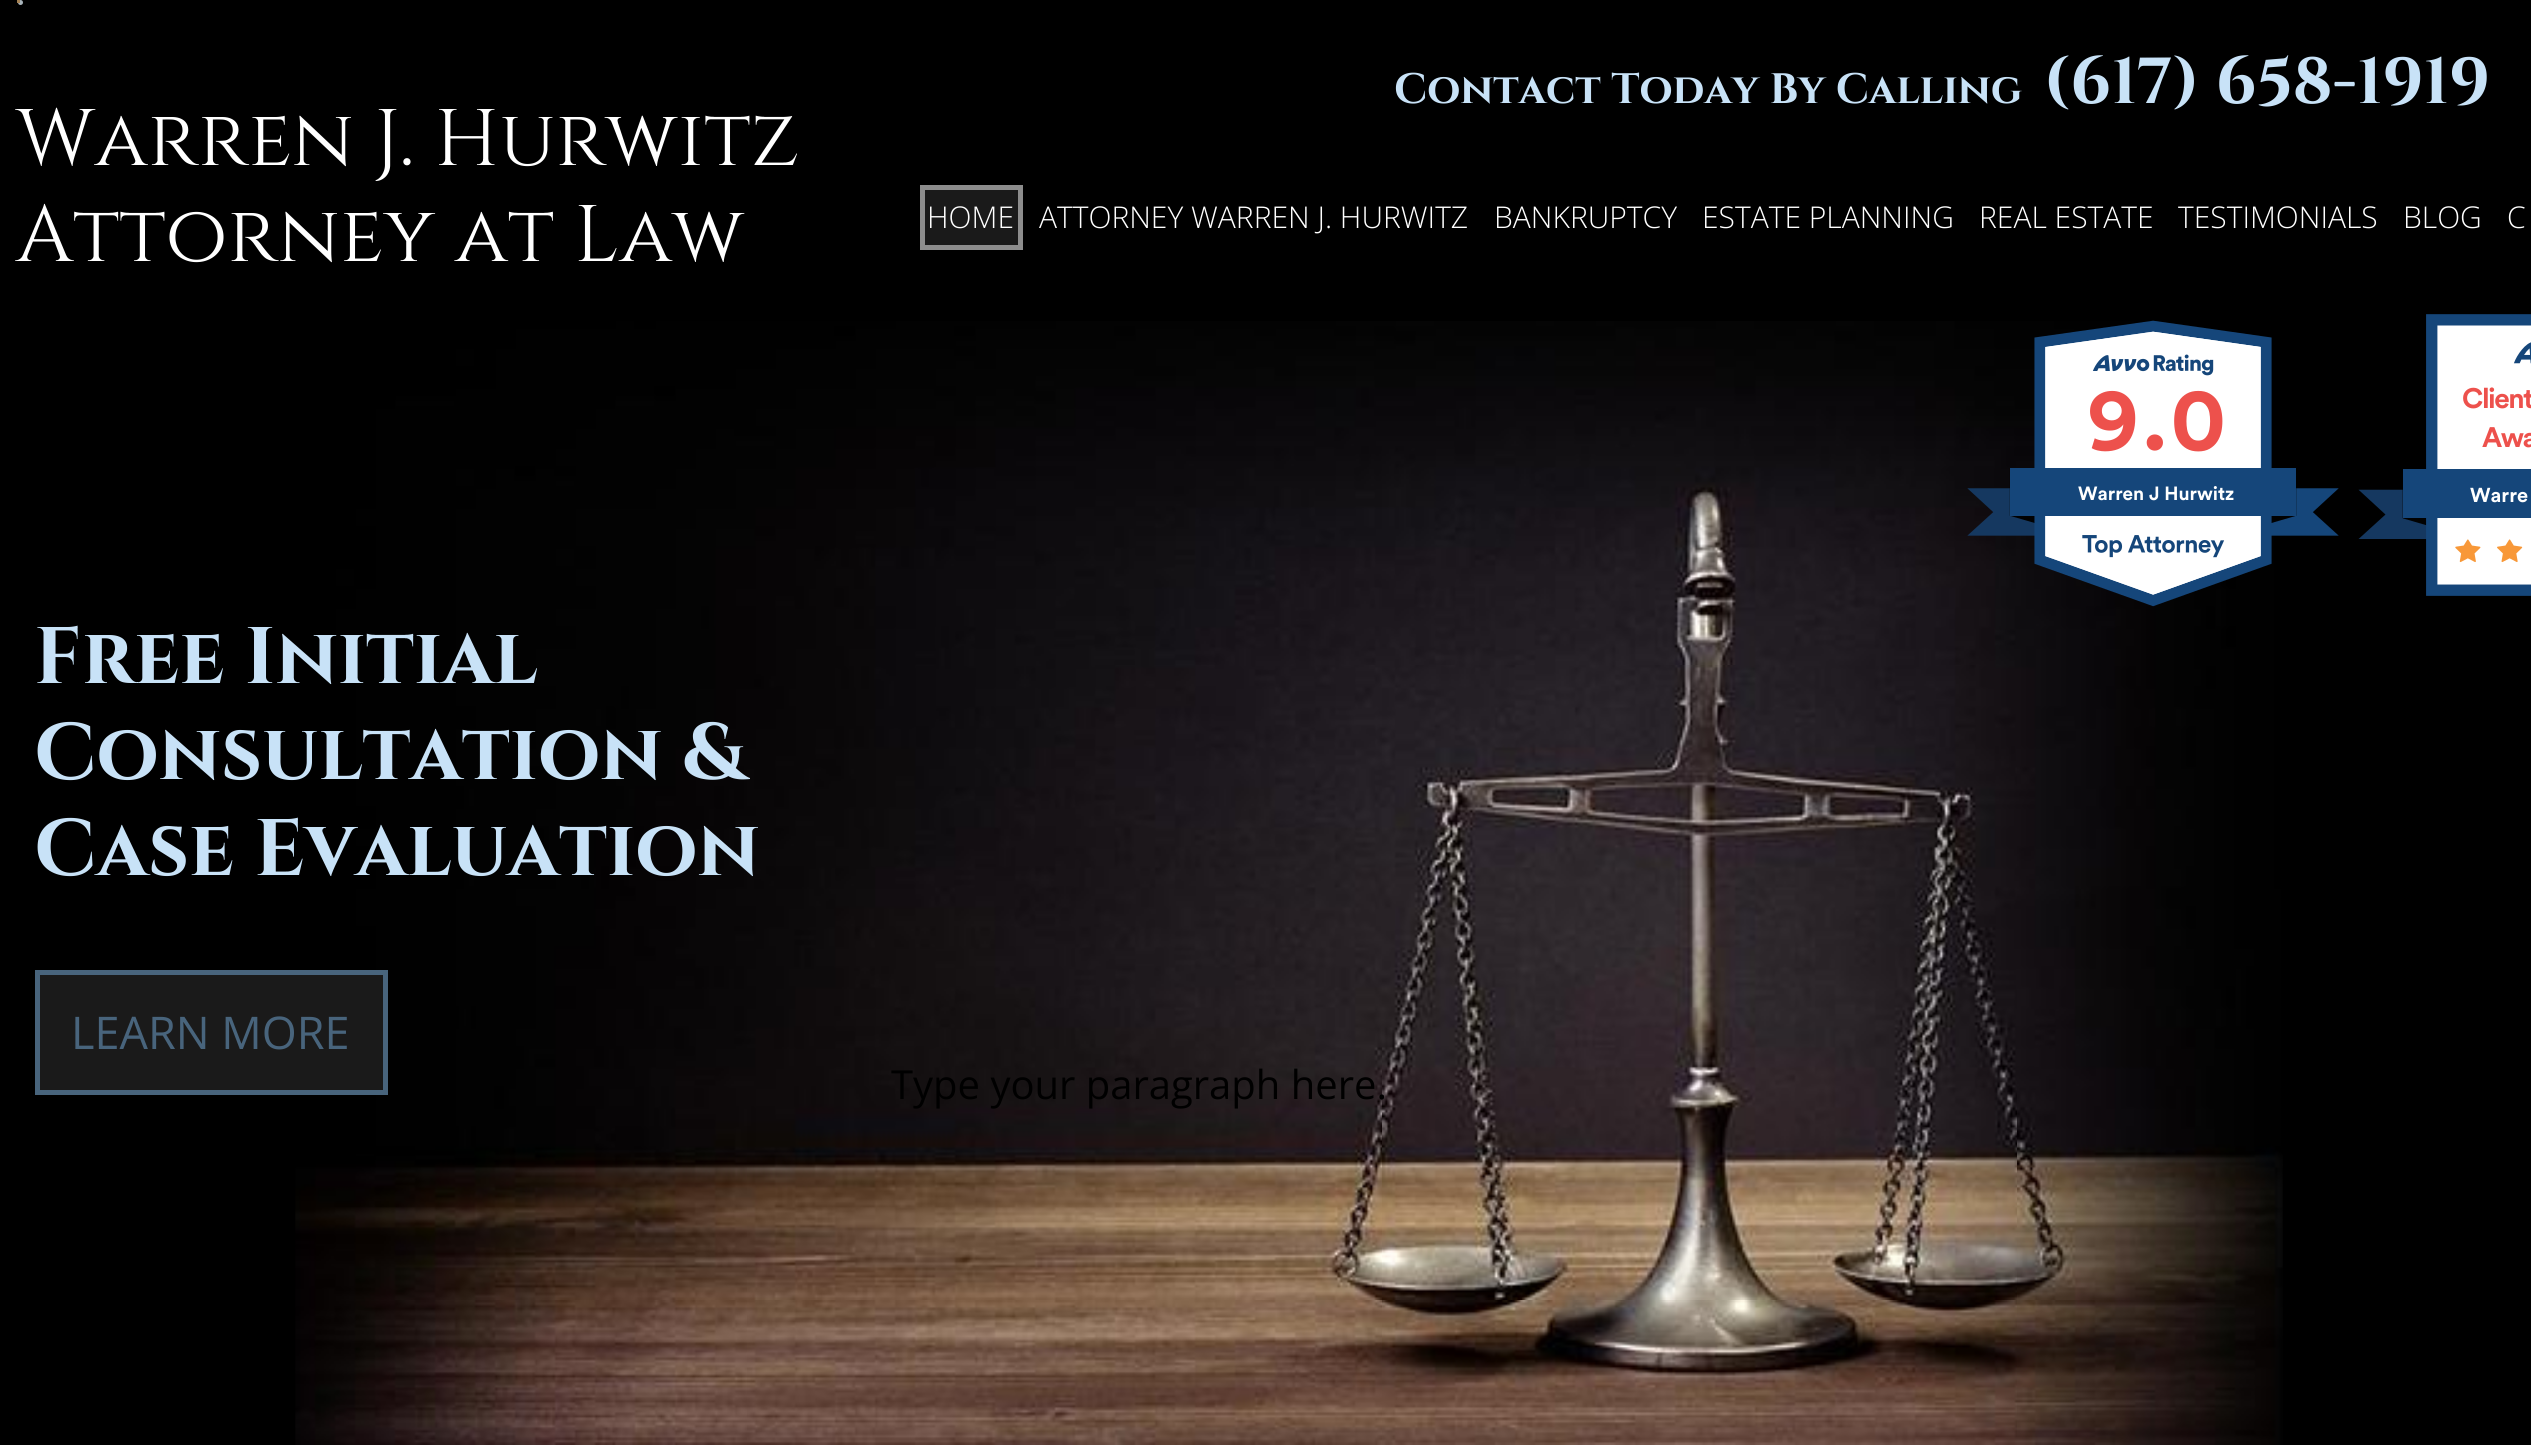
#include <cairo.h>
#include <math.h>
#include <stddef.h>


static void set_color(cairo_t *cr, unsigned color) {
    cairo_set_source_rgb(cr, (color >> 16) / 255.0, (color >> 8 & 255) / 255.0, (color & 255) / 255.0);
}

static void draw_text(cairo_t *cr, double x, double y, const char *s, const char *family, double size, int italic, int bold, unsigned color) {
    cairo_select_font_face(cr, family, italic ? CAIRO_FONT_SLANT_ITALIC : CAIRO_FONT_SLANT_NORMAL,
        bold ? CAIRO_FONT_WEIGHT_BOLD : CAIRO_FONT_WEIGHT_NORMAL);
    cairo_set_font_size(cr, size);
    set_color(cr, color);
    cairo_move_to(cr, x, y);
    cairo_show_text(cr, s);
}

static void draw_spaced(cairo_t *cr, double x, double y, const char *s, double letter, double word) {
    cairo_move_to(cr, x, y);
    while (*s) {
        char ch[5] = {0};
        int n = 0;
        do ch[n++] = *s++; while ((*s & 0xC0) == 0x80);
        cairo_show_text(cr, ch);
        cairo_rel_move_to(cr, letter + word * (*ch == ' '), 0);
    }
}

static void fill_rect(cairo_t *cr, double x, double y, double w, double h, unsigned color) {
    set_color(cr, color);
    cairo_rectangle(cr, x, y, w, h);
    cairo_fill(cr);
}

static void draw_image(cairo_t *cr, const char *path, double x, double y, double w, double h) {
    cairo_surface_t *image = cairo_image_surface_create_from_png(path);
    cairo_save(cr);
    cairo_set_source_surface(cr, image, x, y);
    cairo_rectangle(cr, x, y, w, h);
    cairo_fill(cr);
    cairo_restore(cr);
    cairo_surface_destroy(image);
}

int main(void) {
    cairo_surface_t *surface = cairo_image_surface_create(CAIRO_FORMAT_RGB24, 2531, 1445);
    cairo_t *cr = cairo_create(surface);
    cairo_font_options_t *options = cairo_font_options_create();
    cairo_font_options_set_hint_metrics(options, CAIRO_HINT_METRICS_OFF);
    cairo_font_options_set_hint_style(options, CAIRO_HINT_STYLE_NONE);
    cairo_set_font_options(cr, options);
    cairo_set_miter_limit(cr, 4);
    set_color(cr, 0x000000);
    cairo_paint(cr);
    set_color(cr, 0xA9B4BB);
    cairo_arc(cr, 20.5, 2.5, 2.5, 0, 2 * M_PI);
    cairo_fill(cr);
    fill_rect(cr, 17, 0, 3, 3, 0xA38154);
    draw_text(cr, 1394, 103, "Contact Today By Calling", "Cinzel", 42.5, 0, 1, 0xC8E2F7);
    draw_text(cr, 2043, 103, "(617) 658-1919", "Cinzel", 65, 0, 1, 0xC8E2F7);
    draw_text(cr, 16, 165, "Warren J. Hurwitz", "Cinzel", 80, 0, 0, 0xFFFFFF);
    draw_text(cr, 16, 261, "Attorney at Law", "Cinzel", 80, 0, 0, 0xFFFFFF);
    set_color(cr, 0x1A1A1A);
    cairo_rectangle(cr, 922.5, 187.5, 98, 60);
    cairo_fill_preserve(cr);
    set_color(cr, 0x8D8D8D);
    cairo_set_line_width(cr, 5);
    cairo_stroke(cr);
    draw_text(cr, 927, 228, "HOME", "Open Sans Light", 30, 0, 0, 0xFFFFFF);
    draw_text(cr, 1039, 228, "ATTORNEY WARREN J. HURWITZ", "Open Sans Light", 30, 0, 0, 0xFFFFFF);
    draw_text(cr, 1494, 228, "BANKRUPTCY", "Open Sans Light", 30, 0, 0, 0xFFFFFF);
    draw_text(cr, 1702, 228, "ESTATE PLANNING", "Open Sans Light", 30, 0, 0, 0xFFFFFF);
    draw_text(cr, 1979, 228, "REAL ESTATE", "Open Sans Light", 30, 0, 0, 0xFFFFFF);
    draw_text(cr, 2178, 228, "TESTIMONIALS", "Open Sans Light", 30, 0, 0, 0xFFFFFF);
    draw_text(cr, 2403, 228, "BLOG", "Open Sans Light", 30, 0, 0, 0xFFFFFF);
    draw_text(cr, 2507, 228, "C", "Open Sans Light", 30, 0, 0, 0xFFFFFF);
    draw_image(cr, "assets/img1.png", 295, 321, 1988, 1124);
    draw_image(cr, "assets/img2.png", 2358, 314, 173, 282);
    cairo_select_font_face(cr, "Circular", CAIRO_FONT_SLANT_NORMAL, CAIRO_FONT_WEIGHT_BOLD);
    cairo_set_font_size(cr, 28);
    set_color(cr, 0xED514C);
    draw_spaced(cr, 2462, 408, "Client", -1.5, 0);
    draw_spaced(cr, 2482, 447, "Awa", -1.5, 1);
    draw_text(cr, 2470, 502, "Warre", "Circular", 20, 0, 1, 0xFFFFFF);
    draw_image(cr, "assets/img3.png", 1967, 320, 372, 287);
    cairo_set_font_size(cr, 89);
    set_color(cr, 0xED514C);
    draw_spaced(cr, 2087, 450, "9.0", 2, 0);
    draw_text(cr, 2078, 500, "Warren J Hurwitz", "Circular", 19, 0, 1, 0xFFFFFF);
    draw_text(cr, 34, 683, "Free Initial", "Cinzel", 80, 0, 1, 0xC8E2F7);
    draw_text(cr, 34, 779, "Consultation &", "Cinzel", 80, 0, 1, 0xC8E2F7);
    draw_text(cr, 34, 875, "Case Evaluation", "Cinzel", 80, 0, 1, 0xC8E2F7);
    set_color(cr, 0x1A1A1A);
    cairo_rectangle(cr, 37.5, 972.5, 348, 120);
    cairo_fill_preserve(cr);
    set_color(cr, 0x48647C);
    cairo_stroke(cr);
    draw_text(cr, 71, 1049, "LEARN MORE", "Open Sans", 45, 0, 0, 0x48647C);
    draw_text(cr, 891, 1099, "Type your paragraph here.", "Open Sans", 40, 0, 0, 0x000000);
    cairo_surface_write_to_png(surface, "output.png");
    cairo_font_options_destroy(options);
    cairo_destroy(cr);
    cairo_surface_destroy(surface);
    return 0;
}
